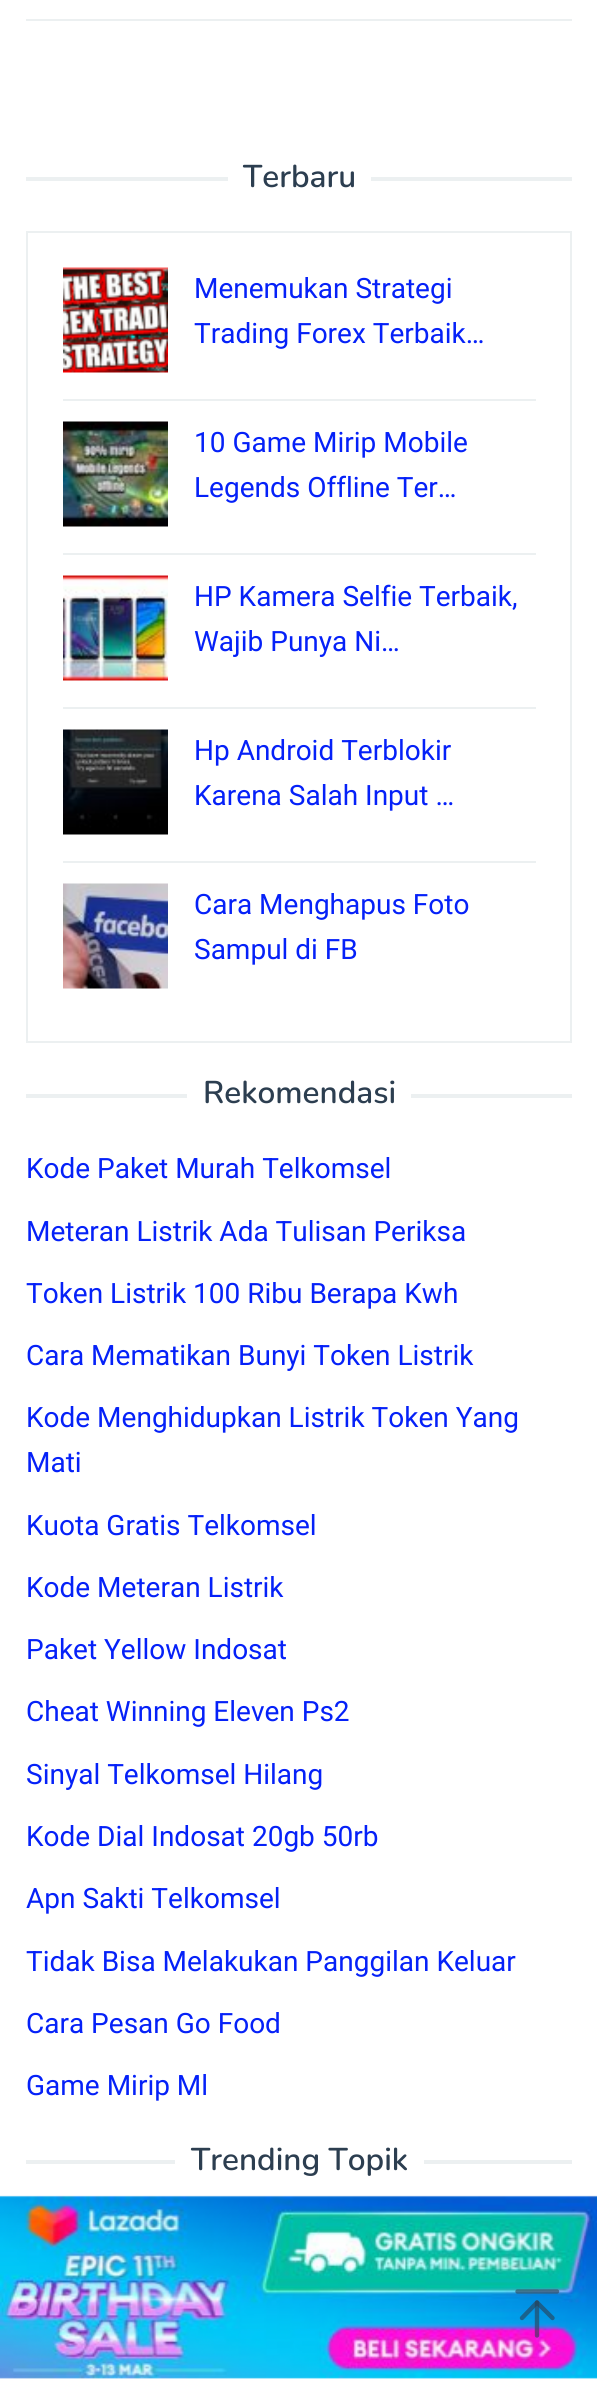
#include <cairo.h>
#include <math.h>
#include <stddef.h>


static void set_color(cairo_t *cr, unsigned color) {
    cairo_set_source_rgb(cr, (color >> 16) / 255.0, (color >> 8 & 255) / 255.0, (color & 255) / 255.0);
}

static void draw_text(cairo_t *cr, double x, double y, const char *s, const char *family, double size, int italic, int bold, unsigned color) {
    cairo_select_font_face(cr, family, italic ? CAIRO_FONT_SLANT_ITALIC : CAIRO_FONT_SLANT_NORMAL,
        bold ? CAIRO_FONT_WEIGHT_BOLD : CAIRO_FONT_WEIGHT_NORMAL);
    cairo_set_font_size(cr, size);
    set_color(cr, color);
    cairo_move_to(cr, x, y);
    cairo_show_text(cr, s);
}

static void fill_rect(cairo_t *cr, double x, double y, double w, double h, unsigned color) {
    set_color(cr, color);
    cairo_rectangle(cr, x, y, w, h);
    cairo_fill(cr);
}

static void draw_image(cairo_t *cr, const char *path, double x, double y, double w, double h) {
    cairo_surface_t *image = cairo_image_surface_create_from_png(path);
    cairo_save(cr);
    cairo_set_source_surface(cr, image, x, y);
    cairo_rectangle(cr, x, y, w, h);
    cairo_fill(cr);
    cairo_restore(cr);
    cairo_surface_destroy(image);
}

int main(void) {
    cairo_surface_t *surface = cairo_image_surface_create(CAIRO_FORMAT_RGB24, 597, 2381);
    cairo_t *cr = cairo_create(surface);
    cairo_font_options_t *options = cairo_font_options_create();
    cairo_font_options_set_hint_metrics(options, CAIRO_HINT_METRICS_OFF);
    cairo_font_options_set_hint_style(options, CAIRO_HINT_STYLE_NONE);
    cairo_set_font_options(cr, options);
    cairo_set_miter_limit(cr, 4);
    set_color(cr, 0xFFFFFF);
    cairo_paint(cr);
    fill_rect(cr, 26, 19, 546, 2, 0xECF0F1);
    fill_rect(cr, 26, 177, 202, 4, 0xECF0F1);
    draw_text(cr, 243, 187, "Terbaru", "Nunito SemiBold", 31.5, 0, 0, 0x2C3E50);
    fill_rect(cr, 371, 177, 201, 4, 0xECF0F1);
    cairo_rectangle(cr, 27, 232, 544, 810);
    cairo_stroke(cr);
    fill_rect(cr, 63, 399, 473, 2, 0xECF0F1);
    draw_image(cr, "assets/img1.png", 63, 267, 105, 106);
    draw_text(cr, 194, 298, "Menemukan Strategi", "Roboto", 28, 0, 0, 0x0521F8);
    draw_text(cr, 194, 343, "Trading Forex Terbaik…", "Roboto", 28, 0, 0, 0x0521F8);
    fill_rect(cr, 63, 553, 473, 2, 0xECF0F1);
    draw_image(cr, "assets/img2.png", 63, 421, 105, 106);
    draw_text(cr, 194, 452, "10 Game Mirip Mobile", "Roboto", 28, 0, 0, 0x0521F8);
    draw_text(cr, 194, 497, "Legends Offline Ter…", "Roboto", 28, 0, 0, 0x0521F8);
    fill_rect(cr, 63, 707, 473, 2, 0xECF0F1);
    draw_image(cr, "assets/img3.png", 63, 575, 105, 106);
    draw_text(cr, 194, 606, "HP Kamera Selfie Terbaik,", "Roboto", 28, 0, 0, 0x0521F8);
    draw_text(cr, 194, 651, "Wajib Punya Ni…", "Roboto", 28, 0, 0, 0x0521F8);
    fill_rect(cr, 63, 861, 473, 2, 0xECF0F1);
    draw_image(cr, "assets/img4.png", 63, 729, 105, 106);
    draw_text(cr, 194, 760, "Hp Android Terblokir", "Roboto", 28, 0, 0, 0x0521F8);
    draw_text(cr, 194, 805, "Karena Salah Input …", "Roboto", 28, 0, 0, 0x0521F8);
    draw_image(cr, "assets/img5.png", 63, 883, 105, 106);
    draw_text(cr, 194, 914, "Cara Menghapus Foto", "Roboto", 28, 0, 0, 0x0521F8);
    draw_text(cr, 194, 959, "Sampul di FB", "Roboto", 28, 0, 0, 0x0521F8);
    fill_rect(cr, 26, 1094, 161, 4, 0xECF0F1);
    draw_text(cr, 203, 1103, "Rekomendasi", "Nunito SemiBold", 31.5, 0, 0, 0x2C3E50);
    fill_rect(cr, 411, 1094, 161, 4, 0xECF0F1);
    draw_text(cr, 26, 1178, "Kode Paket Murah Telkomsel", "Roboto", 28, 0, 0, 0x0521F8);
    draw_text(cr, 26, 1241, "Meteran Listrik Ada Tulisan Periksa", "Roboto", 28, 0, 0, 0x0521F8);
    draw_text(cr, 26, 1303, "Token Listrik 100 Ribu Berapa Kwh", "Roboto", 28, 0, 0, 0x0521F8);
    draw_text(cr, 26, 1365, "Cara Mematikan Bunyi Token Listrik", "Roboto", 28, 0, 0, 0x0521F8);
    draw_text(cr, 26, 1427, "Kode Menghidupkan Listrik Token Yang", "Roboto", 28, 0, 0, 0x0521F8);
    draw_text(cr, 26, 1472, "Mati", "Roboto", 28, 0, 0, 0x0521F8);
    draw_text(cr, 26, 1535, "Kuota Gratis Telkomsel", "Roboto", 28, 0, 0, 0x0521F8);
    draw_text(cr, 26, 1597, "Kode Meteran Listrik", "Roboto", 28, 0, 0, 0x0521F8);
    draw_text(cr, 26, 1659, "Paket Yellow Indosat", "Roboto", 28, 0, 0, 0x0521F8);
    draw_text(cr, 26, 1721, "Cheat Winning Eleven Ps2", "Roboto", 28, 0, 0, 0x0521F8);
    draw_text(cr, 26, 1784, "Sinyal Telkomsel Hilang", "Roboto", 28, 0, 0, 0x0521F8);
    draw_text(cr, 26, 1846, "Kode Dial Indosat 20gb 50rb", "Roboto", 28, 0, 0, 0x0521F8);
    draw_text(cr, 26, 1908, "Apn Sakti Telkomsel", "Roboto", 28, 0, 0, 0x0521F8);
    draw_text(cr, 26, 1971, "Tidak Bisa Melakukan Panggilan Keluar", "Roboto", 28, 0, 0, 0x0521F8);
    draw_text(cr, 26, 2033, "Cara Pesan Go Food", "Roboto", 28, 0, 0, 0x0521F8);
    draw_text(cr, 26, 2095, "Game Mirip Ml", "Roboto", 28, 0, 0, 0x0521F8);
    fill_rect(cr, 26, 2160, 149, 4, 0xECF0F1);
    draw_text(cr, 191, 2170, "Trending Topik", "Nunito SemiBold", 31.5, 0, 0, 0x2C3E50);
    fill_rect(cr, 424, 2160, 148, 4, 0xECF0F1);
    draw_image(cr, "assets/img6.png", 0, 2195, 597, 184);
    cairo_new_path(cr);
    cairo_move_to(cr, 537, 2335.5);
    cairo_line_to(cr, 537, 2302.5);
    cairo_set_source_rgba(cr, 0.173, 0.243, 0.314, 0.6);
    cairo_set_line_width(cr, 4.4);
    cairo_set_line_cap(cr, CAIRO_LINE_CAP_ROUND);
    cairo_set_line_join(cr, CAIRO_LINE_JOIN_ROUND);
    cairo_stroke(cr);
    cairo_new_path(cr);
    cairo_move_to(cr, 522, 2318);
    cairo_line_to(cr, 537, 2302.5);
    cairo_line_to(cr, 552.5, 2318);
    cairo_move_to(cr, 517.5, 2291.5);
    cairo_line_to(cr, 557, 2291.5);
    cairo_stroke(cr);
    cairo_surface_write_to_png(surface, "output.png");
    cairo_font_options_destroy(options);
    cairo_destroy(cr);
    cairo_surface_destroy(surface);
    return 0;
}
